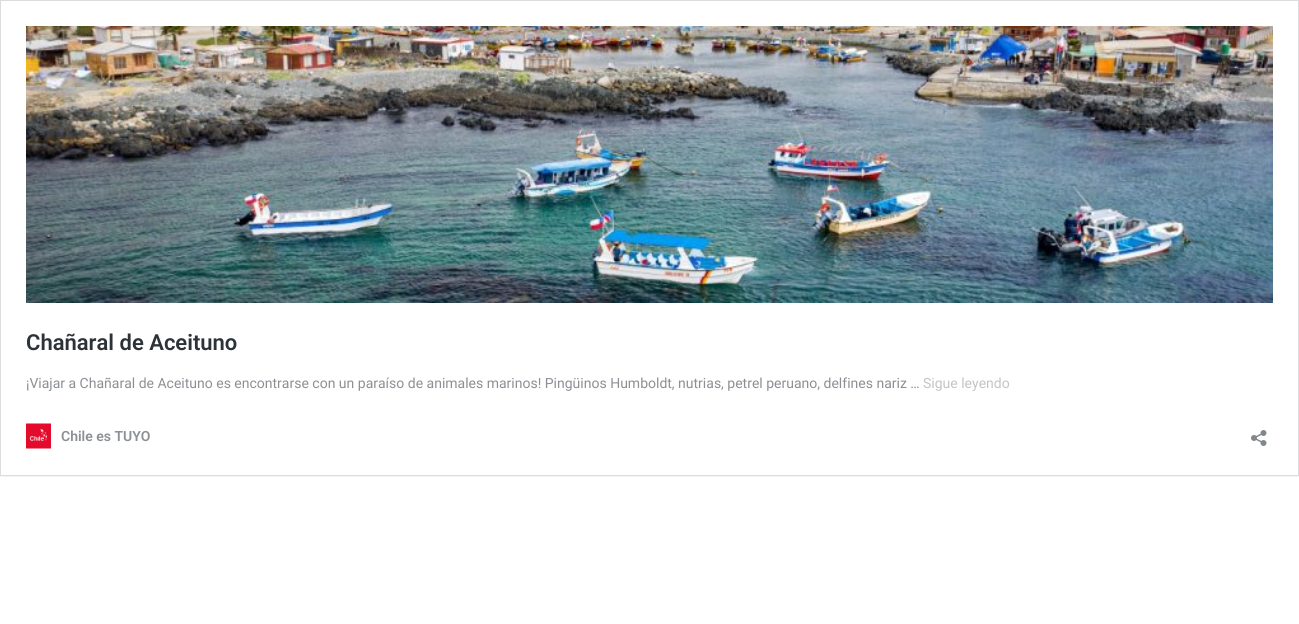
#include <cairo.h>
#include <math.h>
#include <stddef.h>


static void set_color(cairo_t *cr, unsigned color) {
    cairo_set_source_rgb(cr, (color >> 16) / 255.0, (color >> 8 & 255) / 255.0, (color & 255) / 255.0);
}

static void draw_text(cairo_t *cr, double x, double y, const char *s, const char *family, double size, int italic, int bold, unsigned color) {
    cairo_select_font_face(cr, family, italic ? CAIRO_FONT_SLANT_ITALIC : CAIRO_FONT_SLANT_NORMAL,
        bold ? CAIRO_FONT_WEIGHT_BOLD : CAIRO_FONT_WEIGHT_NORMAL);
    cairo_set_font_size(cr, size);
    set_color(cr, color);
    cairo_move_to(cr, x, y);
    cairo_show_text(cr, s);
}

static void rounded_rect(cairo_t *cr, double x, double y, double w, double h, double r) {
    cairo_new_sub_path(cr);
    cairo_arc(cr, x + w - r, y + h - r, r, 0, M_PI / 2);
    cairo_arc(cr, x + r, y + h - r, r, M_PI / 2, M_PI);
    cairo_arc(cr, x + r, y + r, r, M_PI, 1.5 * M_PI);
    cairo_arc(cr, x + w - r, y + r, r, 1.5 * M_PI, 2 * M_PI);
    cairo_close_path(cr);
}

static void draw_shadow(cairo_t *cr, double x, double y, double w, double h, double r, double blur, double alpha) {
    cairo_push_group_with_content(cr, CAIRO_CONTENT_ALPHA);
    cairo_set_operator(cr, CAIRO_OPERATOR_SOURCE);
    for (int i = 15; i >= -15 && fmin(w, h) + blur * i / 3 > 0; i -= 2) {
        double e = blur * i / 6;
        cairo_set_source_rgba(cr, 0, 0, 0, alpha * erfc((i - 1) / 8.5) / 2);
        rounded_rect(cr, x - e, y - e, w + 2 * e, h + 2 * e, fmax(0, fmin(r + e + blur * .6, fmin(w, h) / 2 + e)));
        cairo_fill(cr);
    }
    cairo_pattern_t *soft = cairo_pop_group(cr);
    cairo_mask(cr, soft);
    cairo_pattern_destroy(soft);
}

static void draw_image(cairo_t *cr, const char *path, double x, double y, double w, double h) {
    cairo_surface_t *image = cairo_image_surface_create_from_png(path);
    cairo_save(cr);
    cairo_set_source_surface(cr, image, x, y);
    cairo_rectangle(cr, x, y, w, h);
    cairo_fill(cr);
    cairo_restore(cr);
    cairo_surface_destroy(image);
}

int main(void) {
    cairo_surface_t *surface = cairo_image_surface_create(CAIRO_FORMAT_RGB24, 1299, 624);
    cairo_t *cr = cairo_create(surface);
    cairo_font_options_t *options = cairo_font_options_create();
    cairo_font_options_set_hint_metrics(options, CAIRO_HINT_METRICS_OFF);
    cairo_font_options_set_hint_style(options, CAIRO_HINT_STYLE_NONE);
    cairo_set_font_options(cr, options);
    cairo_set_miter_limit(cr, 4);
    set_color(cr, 0xFFFFFF);
    cairo_paint(cr);
    cairo_save(cr);
    cairo_rectangle(cr, 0, 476, 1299, 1);
    cairo_clip(cr);
    set_color(cr, 0x000000);
    draw_shadow(cr, 0, 1, 1299, 476, 0, 0.5, 0.05);
    cairo_restore(cr);
    cairo_rectangle(cr, 0.5, 0.5, 1298, 475);
    set_color(cr, 0xDCDCDE);
    cairo_set_line_width(cr, 1);
    cairo_stroke(cr);
    draw_image(cr, "assets/img1.png", 26, 26, 1247, 277);
    draw_text(cr, 26, 350, "Chañaral de Aceituno", "Roboto SemiBold", 22, 0, 0, 0x2C3338);
    draw_text(cr, 26, 388, "¡Viajar a Chañaral de Aceituno es encontrarse con un paraíso de animales marinos! Pingüinos Humboldt, nutrias, petrel peruano, delfines nariz …", "Roboto", 14, 0, 0, 0x8C8F94);
    draw_text(cr, 923, 388, "Sigue leyendo", "Roboto", 14, 0, 0, 0xC3C4C7);
    draw_image(cr, "assets/img2.png", 26, 423, 25, 26);
    draw_text(cr, 61, 441, "Chile es TUYO", "Roboto SemiBold", 14, 0, 0, 0x8C8F94);
    draw_image(cr, "assets/img3.png", 1251, 430, 16, 16);
    cairo_surface_write_to_png(surface, "output.png");
    cairo_font_options_destroy(options);
    cairo_destroy(cr);
    cairo_surface_destroy(surface);
    return 0;
}
